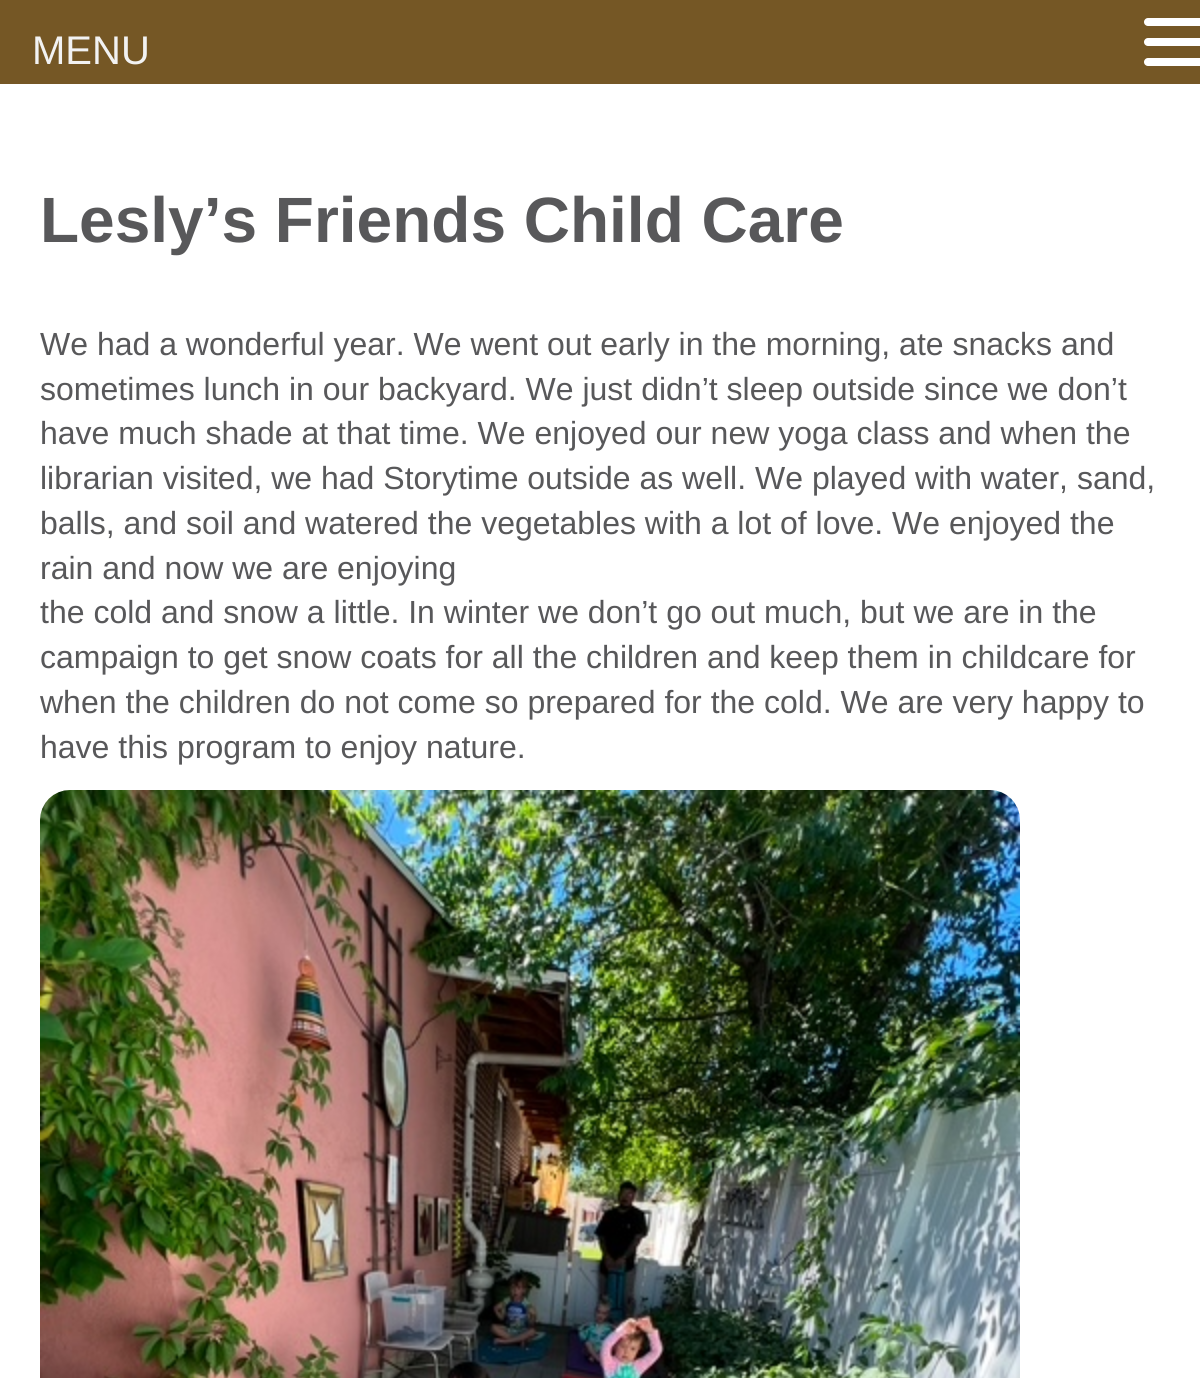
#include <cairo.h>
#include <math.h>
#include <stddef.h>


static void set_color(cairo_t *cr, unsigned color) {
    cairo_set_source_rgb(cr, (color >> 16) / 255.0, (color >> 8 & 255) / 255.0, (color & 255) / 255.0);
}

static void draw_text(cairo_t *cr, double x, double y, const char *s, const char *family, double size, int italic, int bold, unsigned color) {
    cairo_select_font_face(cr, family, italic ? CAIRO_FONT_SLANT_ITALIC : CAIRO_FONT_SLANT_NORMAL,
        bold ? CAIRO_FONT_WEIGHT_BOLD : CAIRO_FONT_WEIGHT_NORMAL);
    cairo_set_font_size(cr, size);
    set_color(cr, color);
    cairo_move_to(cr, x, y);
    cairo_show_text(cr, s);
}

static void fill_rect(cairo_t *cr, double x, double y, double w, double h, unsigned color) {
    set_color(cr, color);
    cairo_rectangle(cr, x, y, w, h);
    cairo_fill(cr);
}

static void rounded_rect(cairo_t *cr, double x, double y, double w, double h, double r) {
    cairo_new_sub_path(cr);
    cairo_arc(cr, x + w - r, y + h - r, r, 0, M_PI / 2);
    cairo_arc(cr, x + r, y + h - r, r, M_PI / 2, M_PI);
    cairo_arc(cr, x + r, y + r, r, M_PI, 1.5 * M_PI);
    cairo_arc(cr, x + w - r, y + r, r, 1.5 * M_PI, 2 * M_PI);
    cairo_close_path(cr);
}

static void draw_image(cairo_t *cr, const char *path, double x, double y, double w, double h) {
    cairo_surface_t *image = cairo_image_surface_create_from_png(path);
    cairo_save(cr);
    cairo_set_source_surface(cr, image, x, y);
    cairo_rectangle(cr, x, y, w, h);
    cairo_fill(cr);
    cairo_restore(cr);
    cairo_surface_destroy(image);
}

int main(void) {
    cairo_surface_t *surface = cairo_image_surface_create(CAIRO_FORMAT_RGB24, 1200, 1378);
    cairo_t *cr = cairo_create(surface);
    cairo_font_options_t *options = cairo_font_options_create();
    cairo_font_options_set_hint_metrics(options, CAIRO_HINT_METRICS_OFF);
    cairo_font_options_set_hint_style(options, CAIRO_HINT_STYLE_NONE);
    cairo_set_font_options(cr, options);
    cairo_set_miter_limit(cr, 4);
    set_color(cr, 0xFFFFFF);
    cairo_paint(cr);
    fill_rect(cr, 0, 0, 1200, 84, 0x755725);
    draw_text(cr, 32, 64, "MENU", "Liberation Sans", 40, 0, 0, 0xF2F2F2);
    set_color(cr, 0xFFFFFF);
    rounded_rect(cr, 1144, 18, 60, 8, 4);
    cairo_fill(cr);
    rounded_rect(cr, 1144, 38, 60, 8, 4);
    cairo_fill(cr);
    rounded_rect(cr, 1144, 58, 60, 8, 4);
    cairo_fill(cr);
    draw_text(cr, 40, 242, "Lesly’s Friends Child Care", "Liberation Sans", 64, 0, 1, 0x58585A);
    draw_text(cr, 40, 355, "We had a wonderful year. We went out early in the morning, ate snacks and", "Liberation Sans", 32, 0, 0, 0x58585A);
    draw_text(cr, 40, 400, "sometimes lunch in our backyard. We just didn’t sleep outside since we don’t", "Liberation Sans", 32, 0, 0, 0x58585A);
    draw_text(cr, 40, 444, "have much shade at that time. We enjoyed our new yoga class and when the", "Liberation Sans", 32, 0, 0, 0x58585A);
    draw_text(cr, 40, 489, "librarian visited, we had Storytime outside as well. We played with water, sand,", "Liberation Sans", 32, 0, 0, 0x58585A);
    draw_text(cr, 40, 534, "balls, and soil and watered the vegetables with a lot of love. We enjoyed the", "Liberation Sans", 32, 0, 0, 0x58585A);
    draw_text(cr, 40, 579, "rain and now we are enjoying", "Liberation Sans", 32, 0, 0, 0x58585A);
    draw_text(cr, 40, 623, "the cold and snow a little. In winter we don’t go out much, but we are in the", "Liberation Sans", 32, 0, 0, 0x58585A);
    draw_text(cr, 40, 668, "campaign to get snow coats for all the children and keep them in childcare for", "Liberation Sans", 32, 0, 0, 0x58585A);
    draw_text(cr, 40, 713, "when the children do not come so prepared for the cold. We are very happy to", "Liberation Sans", 32, 0, 0, 0x58585A);
    draw_text(cr, 40, 758, "have this program to enjoy nature.", "Liberation Sans", 32, 0, 0, 0x58585A);
    draw_image(cr, "assets/img1.png", 40, 790, 980, 588);
    cairo_surface_write_to_png(surface, "output.png");
    cairo_font_options_destroy(options);
    cairo_destroy(cr);
    cairo_surface_destroy(surface);
    return 0;
}
